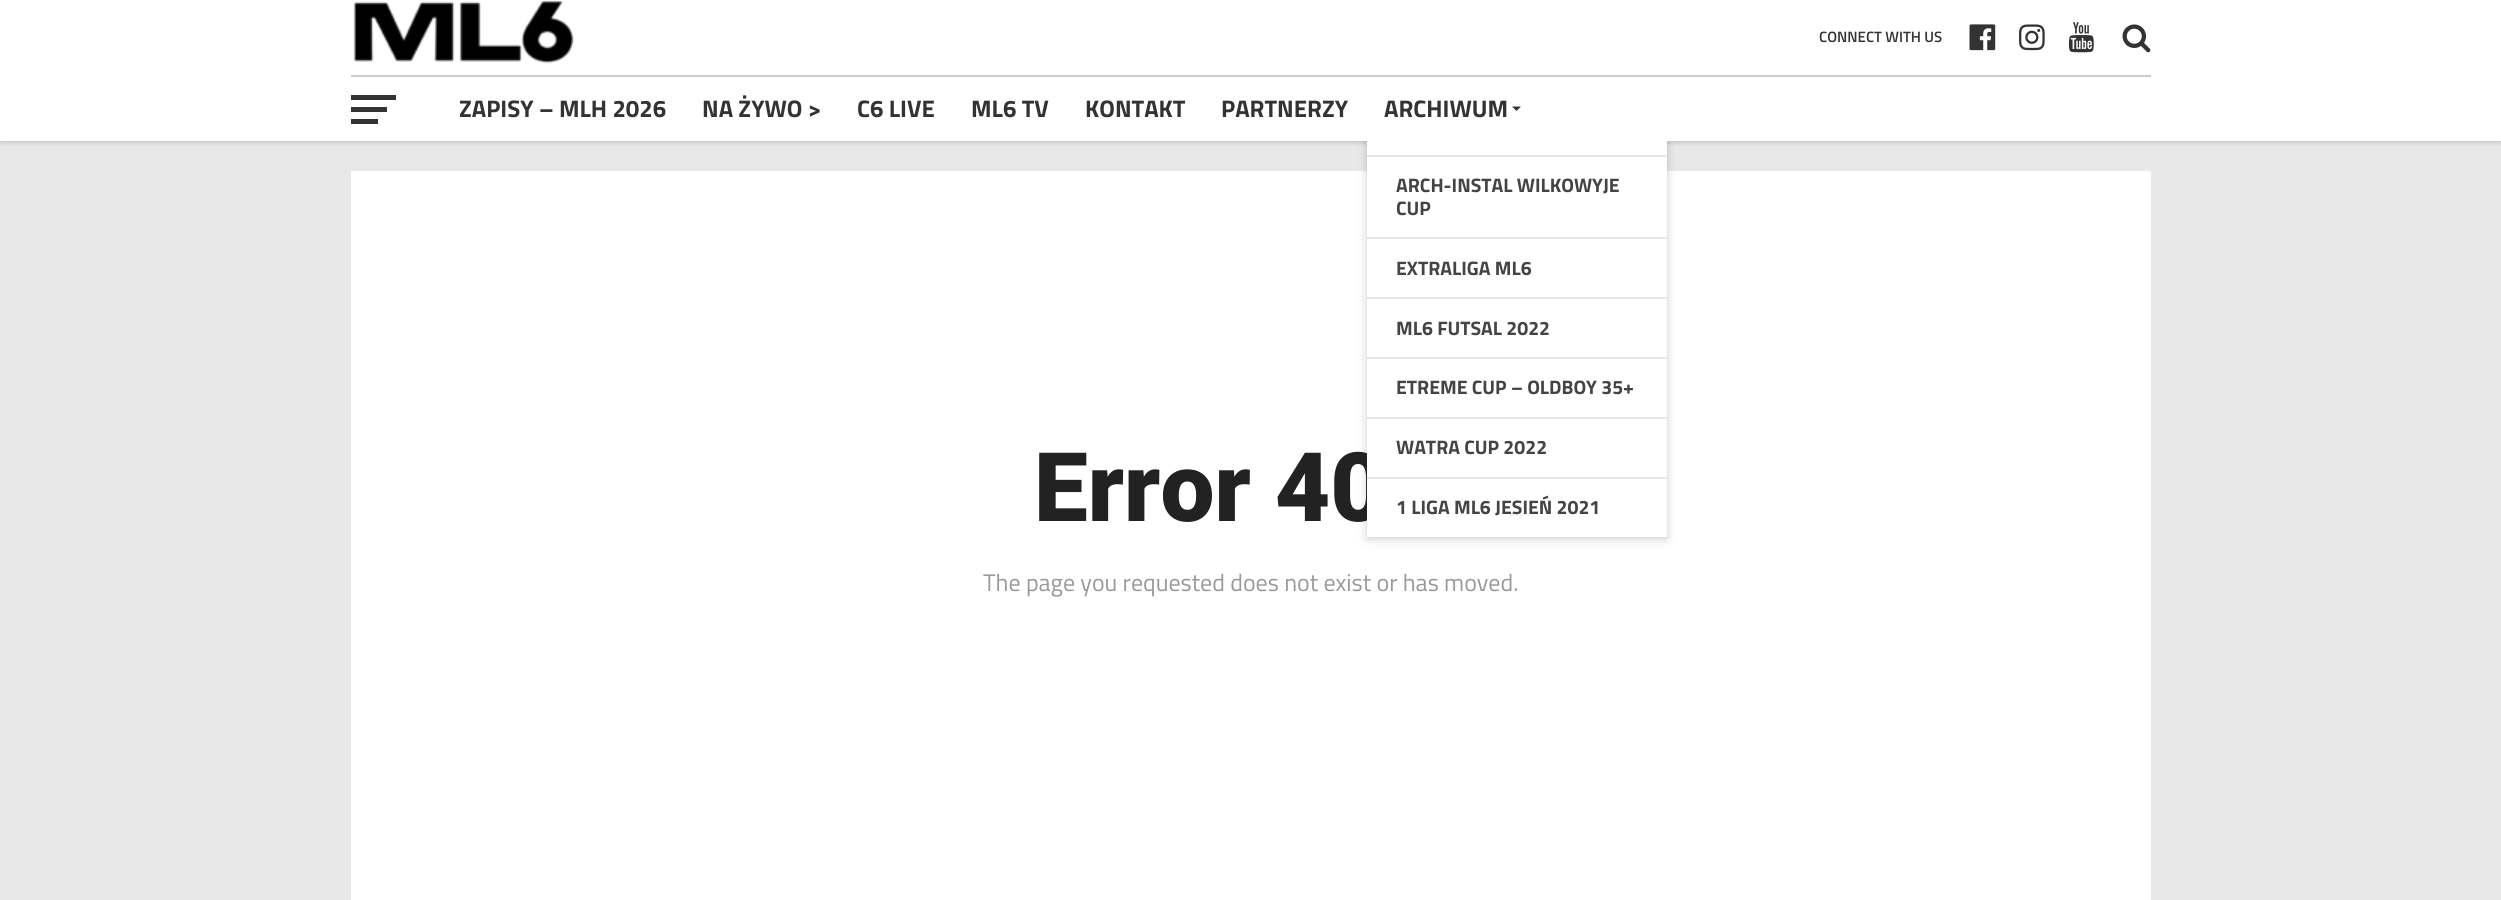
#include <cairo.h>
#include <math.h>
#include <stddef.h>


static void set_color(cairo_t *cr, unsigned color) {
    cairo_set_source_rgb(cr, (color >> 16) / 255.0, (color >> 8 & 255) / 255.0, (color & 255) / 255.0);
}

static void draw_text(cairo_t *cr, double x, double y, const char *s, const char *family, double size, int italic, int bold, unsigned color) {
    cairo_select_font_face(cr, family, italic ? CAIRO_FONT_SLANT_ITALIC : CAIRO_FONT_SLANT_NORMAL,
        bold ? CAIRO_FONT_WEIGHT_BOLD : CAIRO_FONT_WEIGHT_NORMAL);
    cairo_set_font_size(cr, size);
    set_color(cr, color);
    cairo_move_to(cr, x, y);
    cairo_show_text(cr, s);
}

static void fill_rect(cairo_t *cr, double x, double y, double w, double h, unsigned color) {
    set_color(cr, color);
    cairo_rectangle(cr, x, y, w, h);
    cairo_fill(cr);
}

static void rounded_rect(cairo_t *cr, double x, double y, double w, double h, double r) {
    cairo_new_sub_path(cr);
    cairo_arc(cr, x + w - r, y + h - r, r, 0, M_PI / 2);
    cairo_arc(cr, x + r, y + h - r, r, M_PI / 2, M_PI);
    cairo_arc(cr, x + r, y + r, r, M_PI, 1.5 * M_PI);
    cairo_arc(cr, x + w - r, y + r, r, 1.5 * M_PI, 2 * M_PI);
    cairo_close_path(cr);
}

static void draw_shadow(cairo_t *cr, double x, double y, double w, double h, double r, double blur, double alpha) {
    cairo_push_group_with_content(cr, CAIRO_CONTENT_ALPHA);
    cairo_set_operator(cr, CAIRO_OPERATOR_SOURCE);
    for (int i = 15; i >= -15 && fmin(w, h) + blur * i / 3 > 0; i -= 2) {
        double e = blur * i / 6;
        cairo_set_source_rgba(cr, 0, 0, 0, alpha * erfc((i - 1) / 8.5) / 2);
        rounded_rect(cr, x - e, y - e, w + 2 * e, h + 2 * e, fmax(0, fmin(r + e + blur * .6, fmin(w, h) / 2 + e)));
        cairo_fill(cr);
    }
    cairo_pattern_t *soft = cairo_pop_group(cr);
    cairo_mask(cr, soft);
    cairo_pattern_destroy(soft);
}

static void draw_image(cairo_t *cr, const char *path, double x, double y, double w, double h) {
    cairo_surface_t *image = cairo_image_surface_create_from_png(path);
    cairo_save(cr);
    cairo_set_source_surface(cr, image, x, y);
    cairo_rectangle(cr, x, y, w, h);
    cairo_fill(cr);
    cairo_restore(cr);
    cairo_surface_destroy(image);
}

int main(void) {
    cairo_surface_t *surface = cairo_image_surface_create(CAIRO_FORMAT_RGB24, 2501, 900);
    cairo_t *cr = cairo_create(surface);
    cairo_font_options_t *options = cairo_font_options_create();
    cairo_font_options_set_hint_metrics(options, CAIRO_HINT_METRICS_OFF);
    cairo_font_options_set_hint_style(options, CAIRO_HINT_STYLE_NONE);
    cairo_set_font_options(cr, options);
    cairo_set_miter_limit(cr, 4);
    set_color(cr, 0xE8E8E8);
    cairo_paint(cr);
    set_color(cr, 0x000000);
    draw_shadow(cr, 0, 3, 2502, 141, 0, 1.5, 0.1);
    fill_rect(cr, 351, 171, 1800, 729, 0xFFFFFF);
    set_color(cr, 0x000000);
    draw_shadow(cr, 1367, -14, 300, 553, 0, 4.5, 0.2);
    fill_rect(cr, 0, 0, 2501, 141, 0xFFFFFF);
    fill_rect(cr, 351, 75, 1800, 2, 0xCCCCCC);
    draw_image(cr, "assets/img1.png", 353, 0, 221, 64);
    draw_text(cr, 1819, 42, "CONNECT WITH US", "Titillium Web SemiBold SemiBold", 15, 0, 0, 0x333333);
    draw_image(cr, "assets/img2.png", 1969, 24, 27, 27);
    draw_image(cr, "assets/img3.png", 2019, 24, 26, 27);
    draw_image(cr, "assets/img4.png", 2068, 22, 26, 31);
    draw_image(cr, "assets/img5.png", 2122, 24, 29, 29);
    fill_rect(cr, 351, 95, 45, 5, 0x333333);
    fill_rect(cr, 351, 107, 36, 5, 0x333333);
    fill_rect(cr, 351, 119, 27, 5, 0x333333);
    draw_text(cr, 459, 117, "ZAPISY – MLH 2026", "Titillium Web", 24, 0, 1, 0x333333);
    draw_text(cr, 702, 117, "NA ŻYWO >", "Titillium Web", 24, 0, 1, 0x333333);
    draw_text(cr, 857, 117, "C6 LIVE", "Titillium Web", 24, 0, 1, 0x333333);
    draw_text(cr, 971, 117, "ML6 TV", "Titillium Web", 24, 0, 1, 0x333333);
    draw_text(cr, 1085, 117, "KONTAKT", "Titillium Web", 24, 0, 1, 0x333333);
    draw_text(cr, 1221, 117, "PARTNERZY", "Titillium Web", 24, 0, 1, 0x333333);
    draw_text(cr, 1384, 117, "ARCHIWUM", "Titillium Web", 24, 0, 1, 0x333333);
    cairo_new_path(cr);
    cairo_move_to(cr, 1512, 106.5);
    cairo_line_to(cr, 1521, 106.5);
    cairo_line_to(cr, 1516.5, 111);
    cairo_close_path(cr);
    cairo_fill(cr);
    draw_text(cr, 1034, 521, "Error 40", "Roboto Black", 96, 0, 0, 0x222222);
    fill_rect(cr, 1367, 141, 300, 396, 0xFFFFFF);
    fill_rect(cr, 1367, 155, 300, 2, 0xE6E6E6);
    draw_text(cr, 1396, 192, "ARCH-INSTAL WILKOWYJE", "Titillium Web", 19.5, 0, 1, 0x444444);
    draw_text(cr, 1396, 215, "CUP", "Titillium Web", 19.5, 0, 1, 0x444444);
    fill_rect(cr, 1367, 237, 300, 2, 0xE6E6E6);
    draw_text(cr, 1396, 275, "EXTRALIGA ML6", "Titillium Web", 19.5, 0, 1, 0x444444);
    fill_rect(cr, 1367, 297, 300, 2, 0xE6E6E6);
    draw_text(cr, 1396, 335, "ML6 FUTSAL 2022", "Titillium Web", 19.5, 0, 1, 0x444444);
    fill_rect(cr, 1367, 357, 300, 2, 0xE6E6E6);
    draw_text(cr, 1396, 394, "ETREME CUP – OLDBOY 35+", "Titillium Web", 19.5, 0, 1, 0x444444);
    fill_rect(cr, 1367, 417, 300, 2, 0xE6E6E6);
    draw_text(cr, 1396, 454, "WATRA CUP 2022", "Titillium Web", 19.5, 0, 1, 0x444444);
    fill_rect(cr, 1367, 477, 300, 2, 0xE6E6E6);
    draw_text(cr, 1396, 514, "1 LIGA ML6 JESIEŃ 2021", "Titillium Web", 19.5, 0, 1, 0x444444);
    draw_text(cr, 983, 591, "The page you requested does not exist or has moved.", "Titillium Web", 24, 0, 0, 0x999999);
    cairo_surface_write_to_png(surface, "output.png");
    cairo_font_options_destroy(options);
    cairo_destroy(cr);
    cairo_surface_destroy(surface);
    return 0;
}
